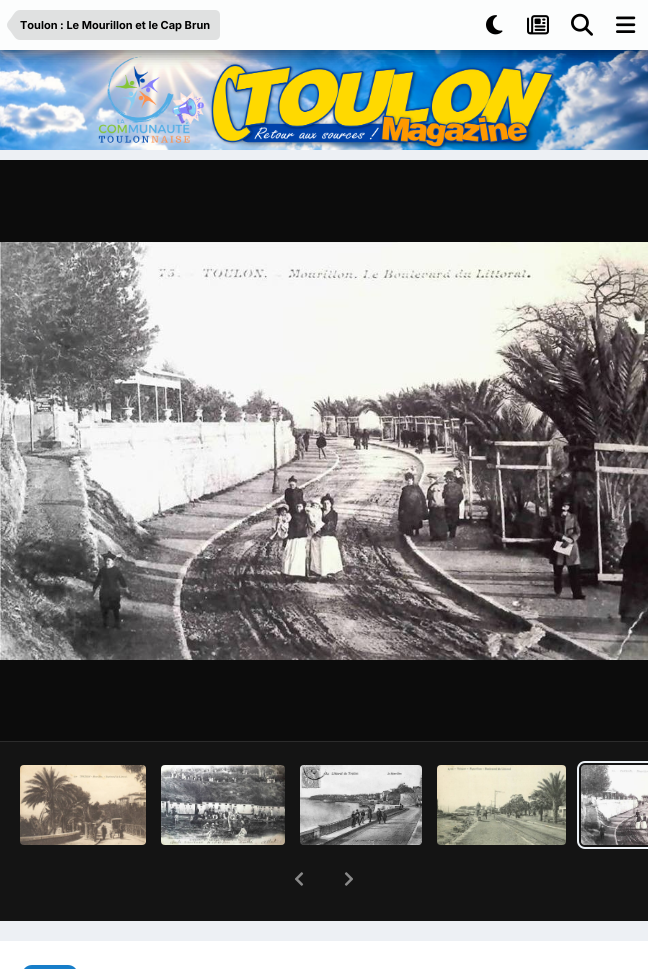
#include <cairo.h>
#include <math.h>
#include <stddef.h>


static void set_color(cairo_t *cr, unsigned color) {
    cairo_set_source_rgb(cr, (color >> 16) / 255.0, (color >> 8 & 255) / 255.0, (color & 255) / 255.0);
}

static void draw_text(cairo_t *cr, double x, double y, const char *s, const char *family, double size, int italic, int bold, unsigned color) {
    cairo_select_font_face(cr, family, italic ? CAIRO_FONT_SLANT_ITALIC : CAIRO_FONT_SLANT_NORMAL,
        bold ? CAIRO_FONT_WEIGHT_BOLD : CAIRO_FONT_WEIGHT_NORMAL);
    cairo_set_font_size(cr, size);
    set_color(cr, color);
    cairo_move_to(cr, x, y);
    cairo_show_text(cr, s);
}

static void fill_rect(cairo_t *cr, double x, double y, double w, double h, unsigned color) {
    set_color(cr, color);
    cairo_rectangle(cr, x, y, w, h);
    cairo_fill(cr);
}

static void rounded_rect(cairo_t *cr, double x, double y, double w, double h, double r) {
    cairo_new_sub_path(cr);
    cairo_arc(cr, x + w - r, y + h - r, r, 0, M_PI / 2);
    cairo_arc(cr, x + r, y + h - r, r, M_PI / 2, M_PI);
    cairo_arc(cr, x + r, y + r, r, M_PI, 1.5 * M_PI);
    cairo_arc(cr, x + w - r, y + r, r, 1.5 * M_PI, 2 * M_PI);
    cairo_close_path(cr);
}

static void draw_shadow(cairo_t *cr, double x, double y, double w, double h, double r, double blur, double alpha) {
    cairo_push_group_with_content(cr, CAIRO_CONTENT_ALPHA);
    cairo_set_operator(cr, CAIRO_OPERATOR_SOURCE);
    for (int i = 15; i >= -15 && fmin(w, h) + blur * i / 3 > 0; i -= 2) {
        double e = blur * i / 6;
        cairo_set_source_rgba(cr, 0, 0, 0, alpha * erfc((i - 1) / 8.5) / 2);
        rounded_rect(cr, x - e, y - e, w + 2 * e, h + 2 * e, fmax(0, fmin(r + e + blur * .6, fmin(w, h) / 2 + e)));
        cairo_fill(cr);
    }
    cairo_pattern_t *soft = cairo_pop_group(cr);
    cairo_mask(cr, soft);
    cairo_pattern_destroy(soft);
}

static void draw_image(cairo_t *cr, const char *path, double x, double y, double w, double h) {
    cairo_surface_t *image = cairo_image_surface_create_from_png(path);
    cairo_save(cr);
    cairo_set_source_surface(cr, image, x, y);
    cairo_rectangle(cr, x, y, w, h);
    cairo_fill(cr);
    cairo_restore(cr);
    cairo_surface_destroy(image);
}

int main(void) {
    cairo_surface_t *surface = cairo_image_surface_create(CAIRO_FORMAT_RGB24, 648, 969);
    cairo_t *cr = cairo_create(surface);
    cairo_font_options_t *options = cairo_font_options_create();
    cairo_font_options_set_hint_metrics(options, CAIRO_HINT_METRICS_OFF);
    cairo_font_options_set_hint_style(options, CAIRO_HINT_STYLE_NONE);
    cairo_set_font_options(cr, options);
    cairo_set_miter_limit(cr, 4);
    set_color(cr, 0xEDF0F4);
    cairo_paint(cr);
    draw_image(cr, "assets/img5.png", 0, 50, 648, 100);
    draw_image(cr, "assets/img6.png", 98, 56, 458, 94);
    set_color(cr, 0x000000);
    draw_shadow(cr, 0, 4, 648, 50, 0, 7.5, 0.53);
    fill_rect(cr, 0, 0, 648, 50, 0xFCFDFD);
    set_color(cr, 0xE0E1E1);
    cairo_new_path(cr);
    cairo_move_to(cr, 20, 10);
    cairo_line_to(cr, 215, 10);
    cairo_curve_to(cr, 218, 10, 220, 12, 220, 15);
    cairo_line_to(cr, 220, 35);
    cairo_curve_to(cr, 220, 38, 218, 40, 215, 40);
    cairo_line_to(cr, 20, 40);
    cairo_close_path(cr);
    cairo_fill(cr);
    cairo_new_path(cr);
    cairo_move_to(cr, 20, 25);
    cairo_line_to(cr, 20, 40);
    cairo_curve_to(cr, 15.5, 40, 13.5, 35.5, 11, 32);
    cairo_curve_to(cr, 9.5, 30, 7, 28, 7, 25);
    cairo_close_path(cr);
    cairo_move_to(cr, 20, 25);
    cairo_line_to(cr, 7, 25);
    cairo_curve_to(cr, 7, 22, 9.5, 20, 11, 18);
    cairo_curve_to(cr, 13.5, 14.5, 15.5, 10, 20, 10);
    cairo_close_path(cr);
    cairo_fill(cr);
    draw_text(cr, 20, 29, "Toulon : Le Mourillon et le Cap Brun", "Inter", 11, 0, 1, 0x000000);
    draw_image(cr, "assets/img1.png", 486, 15, 17, 20);
    draw_image(cr, "assets/img2.png", 527, 15, 22, 20);
    draw_image(cr, "assets/img3.png", 571, 13, 22, 23);
    draw_image(cr, "assets/img4.png", 616, 16, 20, 17);
    fill_rect(cr, 0, 160, 648, 581, 0x0C0C0C);
    draw_image(cr, "assets/img7.png", 0, 242, 648, 418);
    draw_image(cr, "assets/img8.png", 17, 437, 15, 25);
    draw_image(cr, "assets/img9.png", 617, 437, 14, 25);
    fill_rect(cr, 0, 742, 648, 179, 0x141414);
    fill_rect(cr, 0, 741, 648, 1, 0x2C2C2C);
    draw_image(cr, "assets/img10.png", 20, 765, 126, 80);
    draw_image(cr, "assets/img11.png", 161, 765, 124, 80);
    draw_image(cr, "assets/img12.png", 300, 765, 122, 80);
    draw_image(cr, "assets/img13.png", 437, 765, 129, 80);
    rounded_rect(cr, 578, 762, 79, 86, 7);
    set_color(cr, 0xEDF2F7);
    cairo_stroke(cr);
    draw_image(cr, "assets/img14.png", 581, 765, 67, 80);
    draw_image(cr, "assets/img15.png", 295, 872, 9, 14);
    draw_image(cr, "assets/img16.png", 344, 872, 9, 14);
    fill_rect(cr, 0, 941, 648, 28, 0xFFFFFF);
    set_color(cr, 0x177EC9);
    rounded_rect(cr, 22, 965, 56, 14, 10);
    cairo_fill(cr);
    cairo_surface_write_to_png(surface, "output.png");
    cairo_font_options_destroy(options);
    cairo_destroy(cr);
    cairo_surface_destroy(surface);
    return 0;
}
